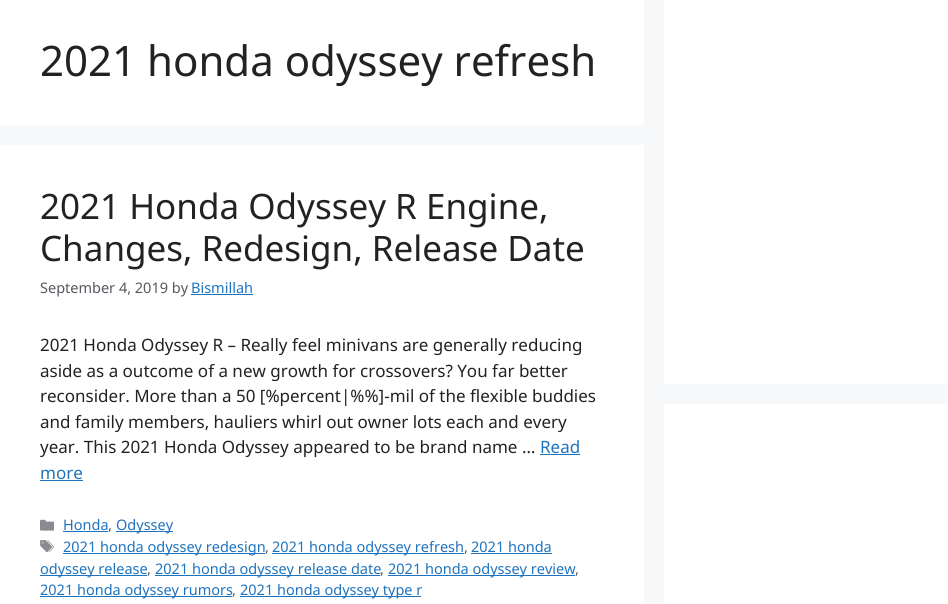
#include <cairo.h>
#include <math.h>
#include <stddef.h>


static void set_color(cairo_t *cr, unsigned color) {
    cairo_set_source_rgb(cr, (color >> 16) / 255.0, (color >> 8 & 255) / 255.0, (color & 255) / 255.0);
}

static void draw_text(cairo_t *cr, double x, double y, const char *s, const char *family, double size, int italic, int bold, unsigned color) {
    cairo_select_font_face(cr, family, italic ? CAIRO_FONT_SLANT_ITALIC : CAIRO_FONT_SLANT_NORMAL,
        bold ? CAIRO_FONT_WEIGHT_BOLD : CAIRO_FONT_WEIGHT_NORMAL);
    cairo_set_font_size(cr, size);
    set_color(cr, color);
    cairo_move_to(cr, x, y);
    cairo_show_text(cr, s);
}

static void fill_rect(cairo_t *cr, double x, double y, double w, double h, unsigned color) {
    set_color(cr, color);
    cairo_rectangle(cr, x, y, w, h);
    cairo_fill(cr);
}

static void draw_image(cairo_t *cr, const char *path, double x, double y, double w, double h) {
    cairo_surface_t *image = cairo_image_surface_create_from_png(path);
    cairo_save(cr);
    cairo_set_source_surface(cr, image, x, y);
    cairo_rectangle(cr, x, y, w, h);
    cairo_fill(cr);
    cairo_restore(cr);
    cairo_surface_destroy(image);
}

int main(void) {
    cairo_surface_t *surface = cairo_image_surface_create(CAIRO_FORMAT_RGB24, 948, 604);
    cairo_t *cr = cairo_create(surface);
    cairo_font_options_t *options = cairo_font_options_create();
    cairo_font_options_set_hint_metrics(options, CAIRO_HINT_METRICS_OFF);
    cairo_font_options_set_hint_style(options, CAIRO_HINT_STYLE_NONE);
    cairo_set_font_options(cr, options);
    cairo_set_miter_limit(cr, 4);
    set_color(cr, 0xF7F8F9);
    cairo_paint(cr);
    fill_rect(cr, 0, 0, 644, 125, 0xFFFFFF);
    draw_text(cr, 40, 76, "2021 honda odyssey refresh", "Noto Sans", 42, 0, 0, 0x222222);
    fill_rect(cr, 0, 145, 644, 459, 0xFFFFFF);
    draw_text(cr, 40, 219, "2021 Honda Odyssey R Engine,", "Noto Sans", 35, 0, 0, 0x222222);
    draw_text(cr, 40, 261, "Changes, Redesign, Release Date", "Noto Sans", 35, 0, 0, 0x222222);
    draw_text(cr, 40, 293, "September 4, 2019 by", "Noto Sans", 14.5, 0, 0, 0x575760);
    draw_text(cr, 191, 293, "Bismillah", "Noto Sans", 14.5, 0, 0, 0x1E73BE);
    fill_rect(cr, 191, 294, 62, 1, 0x1E73BE);
    draw_text(cr, 40, 351, "2021 Honda Odyssey R – Really feel minivans are generally reducing", "Noto Sans", 17, 0, 0, 0x222222);
    draw_text(cr, 40, 377, "aside as a outcome of a new growth for crossovers? You far better", "Noto Sans", 17, 0, 0, 0x222222);
    draw_text(cr, 40, 402, "reconsider. More than a 50 [%percent|%%]-mil of the flexible buddies", "Noto Sans", 17, 0, 0, 0x222222);
    draw_text(cr, 40, 428, "and family members, hauliers whirl out owner lots each and every", "Noto Sans", 17, 0, 0, 0x222222);
    draw_text(cr, 40, 453, "year. This 2021 Honda Odyssey appeared to be brand name …", "Noto Sans", 17, 0, 0, 0x222222);
    draw_text(cr, 540, 453, "Read", "Noto Sans", 17, 0, 0, 0x1E73BE);
    fill_rect(cr, 540, 454, 40, 1, 0x1E73BE);
    draw_text(cr, 40, 479, "more", "Noto Sans", 17, 0, 0, 0x1E73BE);
    fill_rect(cr, 40, 480, 43, 1, 0x1E73BE);
    draw_image(cr, "assets/img1.png", 40, 519, 14, 12);
    draw_text(cr, 63, 530, "Honda", "Noto Sans", 14.5, 0, 0, 0x1E73BE);
    fill_rect(cr, 63, 531, 45, 1, 0x1E73BE);
    draw_text(cr, 108, 530, ",", "Noto Sans", 14.5, 0, 0, 0x575760);
    fill_rect(cr, 116, 531, 57, 1, 0x1E73BE);
    draw_text(cr, 116, 530, "Odyssey", "Noto Sans", 14.5, 0, 0, 0x1E73BE);
    draw_image(cr, "assets/img2.png", 40, 540, 14, 13);
    fill_rect(cr, 63, 553, 202, 1, 0x1E73BE);
    draw_text(cr, 63, 552, "2021 honda odyssey redesign", "Noto Sans", 14.5, 0, 0, 0x1E73BE);
    draw_text(cr, 265, 552, ",", "Noto Sans", 14.5, 0, 0, 0x575760);
    fill_rect(cr, 272, 553, 192, 1, 0x1E73BE);
    draw_text(cr, 272, 552, "2021 honda odyssey refresh", "Noto Sans", 14.5, 0, 0, 0x1E73BE);
    draw_text(cr, 464, 552, ",", "Noto Sans", 14.5, 0, 0, 0x575760);
    draw_text(cr, 471, 552, "2021 honda", "Noto Sans", 14.5, 0, 0, 0x1E73BE);
    fill_rect(cr, 471, 553, 81, 1, 0x1E73BE);
    fill_rect(cr, 40, 575, 107, 1, 0x1E73BE);
    draw_text(cr, 40, 574, "odyssey release", "Noto Sans", 14.5, 0, 0, 0x1E73BE);
    draw_text(cr, 147, 574, ",", "Noto Sans", 14.5, 0, 0, 0x575760);
    fill_rect(cr, 155, 575, 225, 1, 0x1E73BE);
    draw_text(cr, 155, 574, "2021 honda odyssey release date", "Noto Sans", 14.5, 0, 0, 0x1E73BE);
    draw_text(cr, 380, 574, ",", "Noto Sans", 14.5, 0, 0, 0x575760);
    fill_rect(cr, 388, 575, 187, 1, 0x1E73BE);
    draw_text(cr, 388, 574, "2021 honda odyssey review", "Noto Sans", 14.5, 0, 0, 0x1E73BE);
    draw_text(cr, 575, 574, ",", "Noto Sans", 14.5, 0, 0, 0x575760);
    fill_rect(cr, 40, 596, 192, 1, 0x1E73BE);
    draw_text(cr, 40, 595, "2021 honda odyssey rumors", "Noto Sans", 14.5, 0, 0, 0x1E73BE);
    draw_text(cr, 232, 595, ",", "Noto Sans", 14.5, 0, 0, 0x575760);
    fill_rect(cr, 240, 596, 181, 1, 0x1E73BE);
    draw_text(cr, 240, 595, "2021 honda odyssey type r", "Noto Sans", 14.5, 0, 0, 0x1E73BE);
    fill_rect(cr, 664, 0, 284, 384, 0xFFFFFF);
    fill_rect(cr, 664, 404, 284, 200, 0xFFFFFF);
    cairo_surface_write_to_png(surface, "output.png");
    cairo_font_options_destroy(options);
    cairo_destroy(cr);
    cairo_surface_destroy(surface);
    return 0;
}
